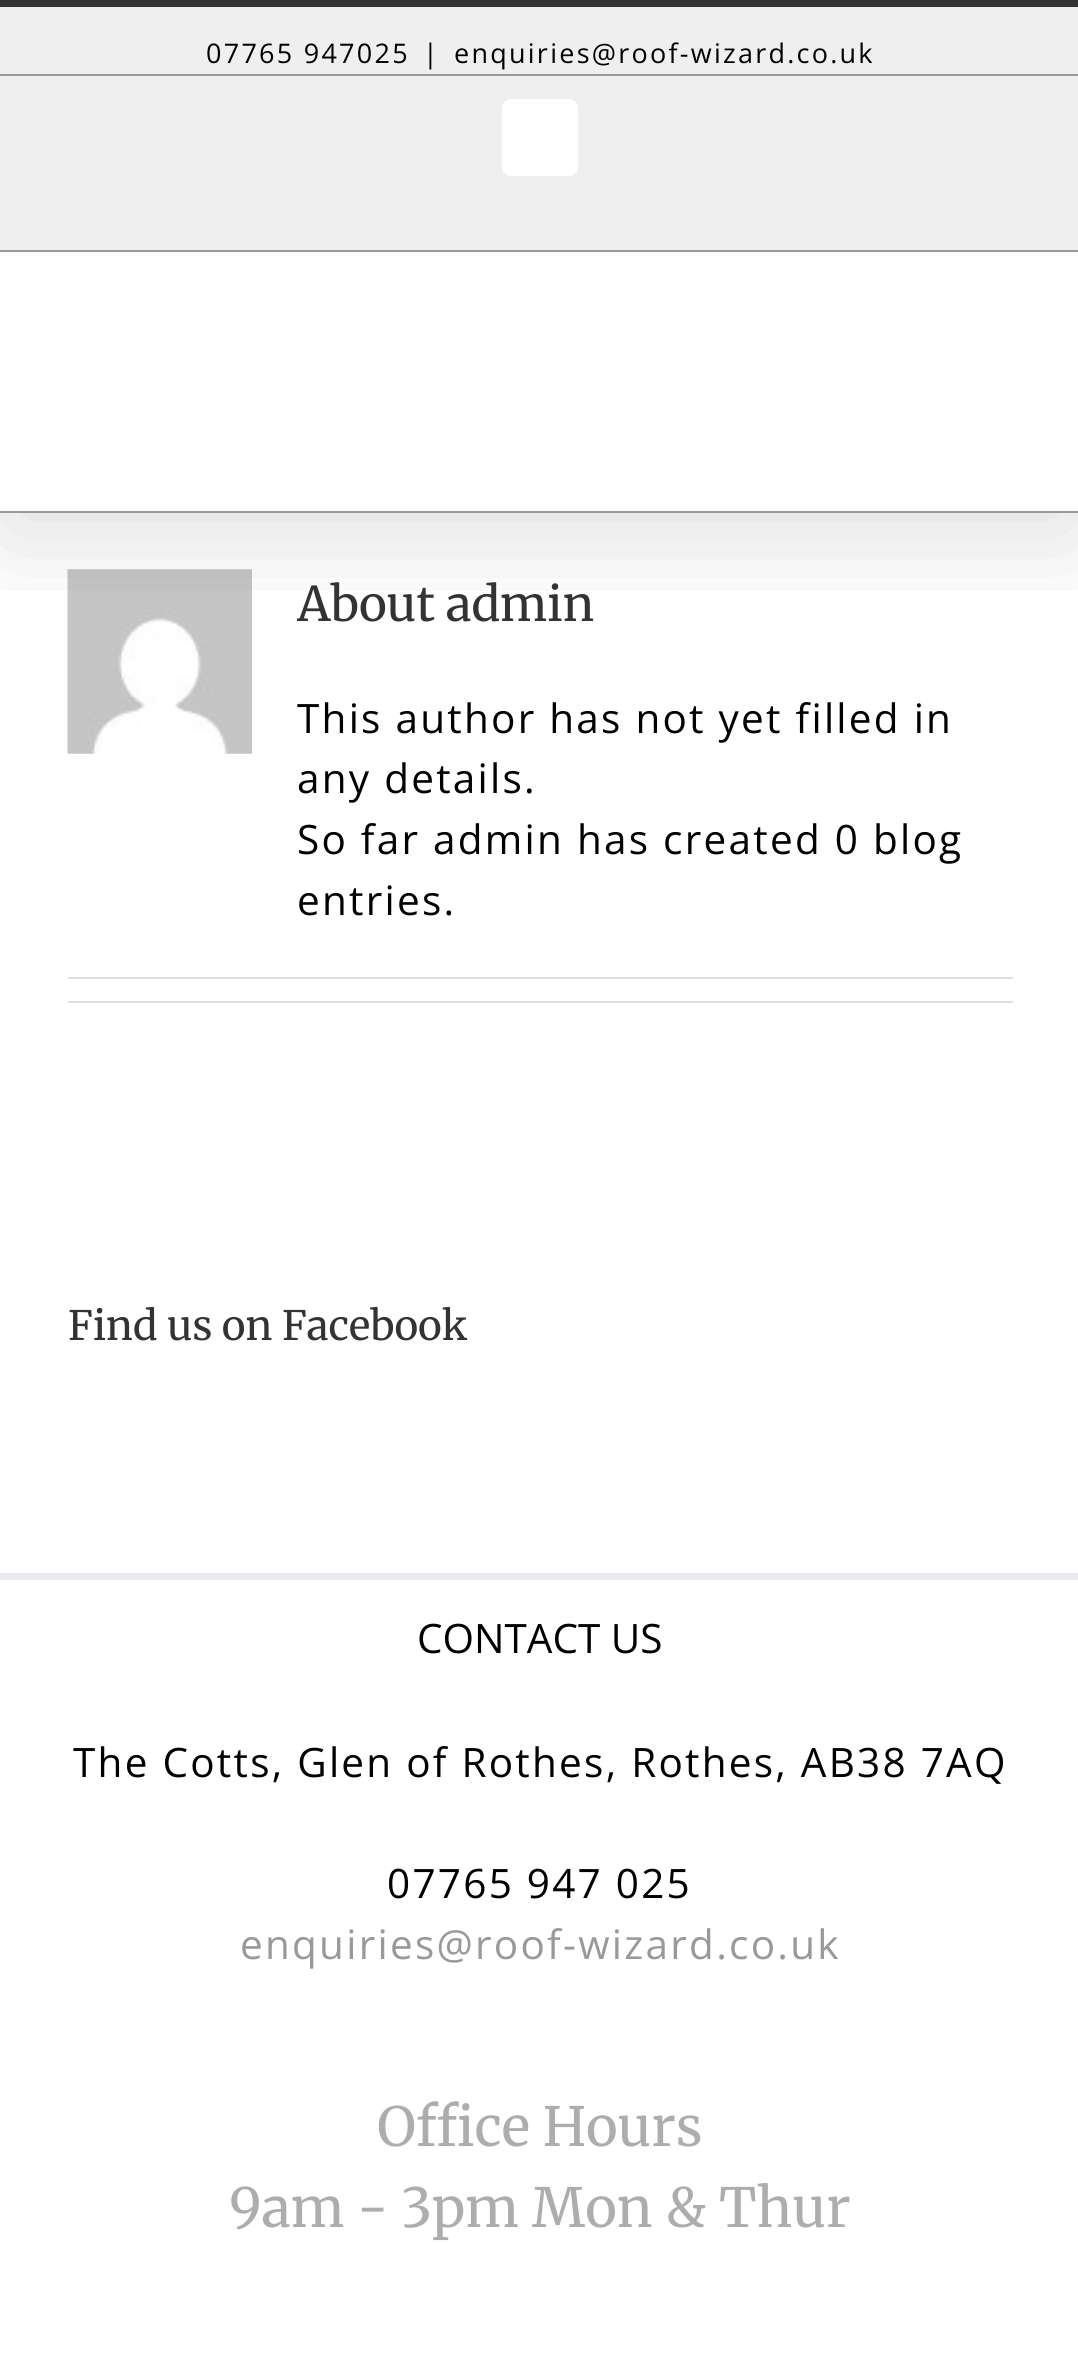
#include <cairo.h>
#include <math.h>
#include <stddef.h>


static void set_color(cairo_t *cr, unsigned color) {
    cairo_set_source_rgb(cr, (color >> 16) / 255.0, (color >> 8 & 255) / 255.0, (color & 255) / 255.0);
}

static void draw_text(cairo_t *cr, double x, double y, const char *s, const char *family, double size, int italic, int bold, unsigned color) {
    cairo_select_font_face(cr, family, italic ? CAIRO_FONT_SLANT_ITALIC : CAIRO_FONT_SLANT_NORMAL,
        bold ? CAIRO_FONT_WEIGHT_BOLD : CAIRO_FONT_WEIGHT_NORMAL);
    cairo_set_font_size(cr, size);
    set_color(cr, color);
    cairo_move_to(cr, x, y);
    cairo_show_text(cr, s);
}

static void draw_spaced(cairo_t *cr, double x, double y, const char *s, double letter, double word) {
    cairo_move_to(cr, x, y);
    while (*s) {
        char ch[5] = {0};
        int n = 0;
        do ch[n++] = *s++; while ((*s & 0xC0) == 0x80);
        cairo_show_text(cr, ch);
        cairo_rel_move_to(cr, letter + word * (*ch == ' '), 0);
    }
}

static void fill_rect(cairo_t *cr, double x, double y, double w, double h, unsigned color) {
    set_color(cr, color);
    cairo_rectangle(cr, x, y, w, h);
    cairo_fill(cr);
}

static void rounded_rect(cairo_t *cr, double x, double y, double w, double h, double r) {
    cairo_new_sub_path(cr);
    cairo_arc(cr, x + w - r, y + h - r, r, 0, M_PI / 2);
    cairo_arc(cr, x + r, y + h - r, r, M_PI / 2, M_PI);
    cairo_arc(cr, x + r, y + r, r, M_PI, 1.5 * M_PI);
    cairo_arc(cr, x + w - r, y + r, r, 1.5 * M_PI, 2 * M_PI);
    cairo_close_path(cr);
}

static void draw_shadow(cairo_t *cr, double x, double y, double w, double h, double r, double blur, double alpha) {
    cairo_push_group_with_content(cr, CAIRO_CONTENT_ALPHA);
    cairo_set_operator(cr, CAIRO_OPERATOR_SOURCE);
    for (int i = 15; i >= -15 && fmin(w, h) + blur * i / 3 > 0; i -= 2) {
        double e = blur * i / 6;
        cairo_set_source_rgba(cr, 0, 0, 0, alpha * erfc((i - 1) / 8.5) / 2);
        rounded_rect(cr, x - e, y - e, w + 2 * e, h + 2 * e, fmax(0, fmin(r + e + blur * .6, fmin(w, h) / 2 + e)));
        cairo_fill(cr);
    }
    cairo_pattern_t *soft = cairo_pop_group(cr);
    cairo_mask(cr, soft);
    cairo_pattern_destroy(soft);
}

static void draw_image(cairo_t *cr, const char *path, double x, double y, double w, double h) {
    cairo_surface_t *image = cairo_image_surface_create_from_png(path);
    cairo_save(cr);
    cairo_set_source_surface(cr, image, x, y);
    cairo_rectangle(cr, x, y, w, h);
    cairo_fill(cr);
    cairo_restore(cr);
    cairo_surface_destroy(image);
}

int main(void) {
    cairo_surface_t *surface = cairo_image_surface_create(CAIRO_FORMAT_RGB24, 1078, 2361);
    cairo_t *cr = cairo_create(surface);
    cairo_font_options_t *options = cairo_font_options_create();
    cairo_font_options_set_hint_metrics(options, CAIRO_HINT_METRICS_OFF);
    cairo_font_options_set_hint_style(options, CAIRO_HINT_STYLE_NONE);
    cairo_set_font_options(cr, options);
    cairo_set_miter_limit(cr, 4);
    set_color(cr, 0xFFFFFF);
    cairo_paint(cr);
    draw_image(cr, "assets/img1.png", 67, 569, 185, 185);
    cairo_save(cr);
    cairo_rectangle(cr, 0, 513, 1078, 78);
    cairo_clip(cr);
    set_color(cr, 0x000000);
    draw_shadow(cr, 5, 27, 1071, 504, 0, 56, 0.14);
    cairo_restore(cr);
    fill_rect(cr, 0, 7, 1078, 243, 0xEFEFEF);
    fill_rect(cr, 0, 0, 1078, 7, 0x333333);
    fill_rect(cr, 0, 250, 1078, 2, 0x999999);
    fill_rect(cr, 0, 74, 1078, 2, 0x999999);
    cairo_select_font_face(cr, "Open Sans", CAIRO_FONT_SLANT_NORMAL, CAIRO_FONT_WEIGHT_NORMAL);
    cairo_set_font_size(cr, 27);
    set_color(cr, 0x000000);
    draw_spaced(cr, 206, 63, "07765 947025", 2.25, 0);
    draw_spaced(cr, 423, 63, "|", 2.25, 0);
    draw_spaced(cr, 454, 63, "enquiries@roof-wizard.co.uk", 2.25, 0);
    set_color(cr, 0xFFFFFF);
    rounded_rect(cr, 503, 100, 74, 75, 8);
    cairo_fill_preserve(cr);
    cairo_stroke(cr);
    fill_rect(cr, 0, 511, 1078, 2, 0x999999);
    cairo_save(cr);
    cairo_rectangle(cr, 297, 569, 716, 363);
    cairo_clip(cr);
    draw_text(cr, 297, 621, "About", "Merriweather Light", 47.5, 0, 0, 0x333333);
    cairo_restore(cr);
    draw_text(cr, 446, 621, "admin", "Merriweather Light", 47.5, 0, 0, 0x333333);
    cairo_select_font_face(cr, "Open Sans", CAIRO_FONT_SLANT_NORMAL, CAIRO_FONT_WEIGHT_NORMAL);
    cairo_set_font_size(cr, 40.5);
    set_color(cr, 0x000000);
    draw_spaced(cr, 297, 733, "This author has not yet filled in", 2.25, 0);
    draw_spaced(cr, 297, 793, "any details.", 2.25, 0);
    draw_spaced(cr, 297, 854, "So far admin has created 0 blog", 2.25, 0);
    draw_spaced(cr, 297, 915, "entries.", 2.25, 0);
    fill_rect(cr, 68, 977, 945, 2, 0xE0DEDE);
    fill_rect(cr, 68, 1001, 945, 2, 0xE0DEDE);
    draw_text(cr, 68, 1340, "Find us on Facebook", "Merriweather Light", 40.5, 0, 0, 0x333333);
    fill_rect(cr, 0, 1573, 1078, 7, 0xE9EAEE);
    draw_text(cr, 417, 1653, "CONTACT US", "Open Sans", 40.5, 0, 0, 0x000000);
    draw_spaced(cr, 73, 1777, "The Cotts, Glen of Rothes, Rothes, AB38 7AQ", 2.25, 0);
    draw_spaced(cr, 387, 1898, "07765 947 025", 2.25, 0);
    set_color(cr, 0x999999);
    draw_spaced(cr, 240, 1959, "enquiries@roof-wizard.co.uk", 2.25, 0);
    draw_text(cr, 377, 2146, "Office Hours", "Merriweather Light", 54, 0, 0, 0xADADAD);
    draw_text(cr, 229, 2227, "9am - 3pm Mon & Thur", "Merriweather Light", 54, 0, 0, 0xADADAD);
    cairo_surface_write_to_png(surface, "output.png");
    cairo_font_options_destroy(options);
    cairo_destroy(cr);
    cairo_surface_destroy(surface);
    return 0;
}
